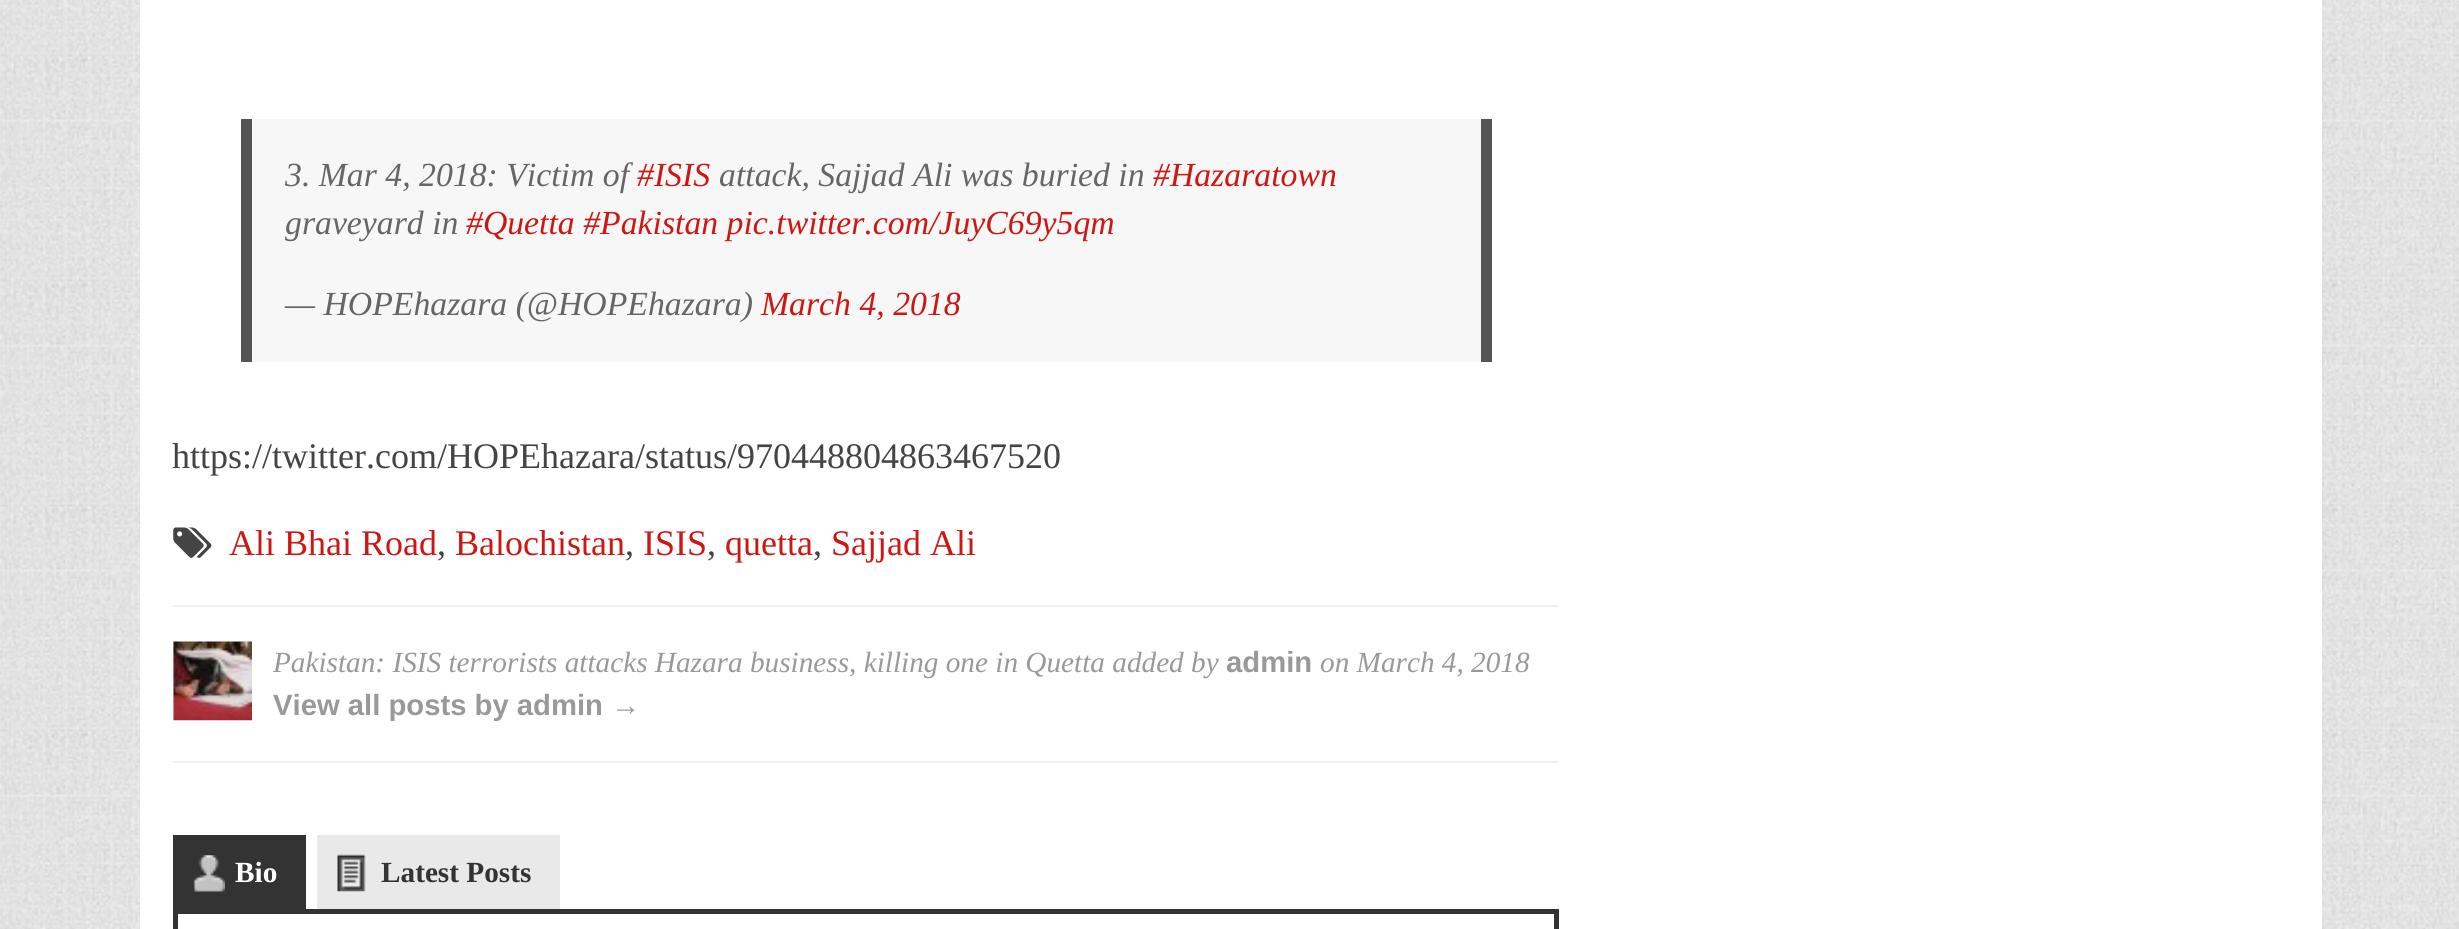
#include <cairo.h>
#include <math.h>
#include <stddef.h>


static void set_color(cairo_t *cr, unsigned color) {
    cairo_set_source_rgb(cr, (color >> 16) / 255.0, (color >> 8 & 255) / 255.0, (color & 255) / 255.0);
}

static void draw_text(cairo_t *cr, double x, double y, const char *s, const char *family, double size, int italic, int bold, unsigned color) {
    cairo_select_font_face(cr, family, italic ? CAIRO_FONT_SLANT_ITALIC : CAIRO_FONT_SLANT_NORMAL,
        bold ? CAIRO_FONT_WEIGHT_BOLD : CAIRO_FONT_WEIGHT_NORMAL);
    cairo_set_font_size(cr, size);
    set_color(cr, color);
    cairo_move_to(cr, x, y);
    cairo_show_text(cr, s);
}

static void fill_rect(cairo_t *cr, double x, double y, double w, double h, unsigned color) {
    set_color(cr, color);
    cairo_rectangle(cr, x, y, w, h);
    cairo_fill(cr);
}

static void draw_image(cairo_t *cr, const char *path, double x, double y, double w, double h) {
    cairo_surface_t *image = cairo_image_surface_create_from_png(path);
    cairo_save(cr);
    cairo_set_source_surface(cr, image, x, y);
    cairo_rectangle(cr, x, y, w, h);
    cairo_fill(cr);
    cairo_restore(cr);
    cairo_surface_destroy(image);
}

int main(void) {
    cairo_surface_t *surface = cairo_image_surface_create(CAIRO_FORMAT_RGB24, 2459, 929);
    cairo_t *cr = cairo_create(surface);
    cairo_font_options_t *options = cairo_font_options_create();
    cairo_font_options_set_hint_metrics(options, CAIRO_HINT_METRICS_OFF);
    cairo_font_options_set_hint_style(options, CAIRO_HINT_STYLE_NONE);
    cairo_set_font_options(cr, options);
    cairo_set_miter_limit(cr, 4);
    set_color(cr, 0xFFFFFF);
    cairo_paint(cr);
    draw_image(cr, "assets/img1.png", 0, 0, 2459, 929);
    fill_rect(cr, 140, 0, 2182, 929, 0xFFFFFF);
    fill_rect(cr, 252, 119, 1229, 243, 0xF7F7F7);
    fill_rect(cr, 1481, 119, 11, 243, 0x555555);
    fill_rect(cr, 241, 119, 11, 243, 0x555555);
    draw_text(cr, 285, 186, "3. Mar 4, 2018: Victim of", "Liberation Serif", 33.75, 1, 0, 0x666666);
    draw_text(cr, 637, 186, "#ISIS", "Liberation Serif", 33.75, 1, 0, 0xCD1713);
    draw_text(cr, 719, 186, "attack, Sajjad Ali was buried in", "Liberation Serif", 33.75, 1, 0, 0x666666);
    draw_text(cr, 1153, 186, "#Hazaratown", "Liberation Serif", 33.75, 1, 0, 0xCD1713);
    draw_text(cr, 285, 234, "graveyard in", "Liberation Serif", 33.75, 1, 0, 0x666666);
    draw_text(cr, 466, 234, "#Quetta #Pakistan pic.twitter.com/JuyC69y5qm", "Liberation Serif", 33.75, 1, 0, 0xCD1713);
    draw_text(cr, 285, 315, "— HOPEhazara (@HOPEhazara)", "Liberation Serif", 33.75, 1, 0, 0x666666);
    draw_text(cr, 761, 315, "March 4, 2018", "Liberation Serif", 33.75, 1, 0, 0xCD1713);
    draw_text(cr, 172, 468, "https://twitter.com/HOPEhazara/status/970448804863467520", "Liberation Serif", 36, 0, 0, 0x444444);
    draw_image(cr, "assets/img2.png", 173, 527, 39, 31);
    draw_text(cr, 229, 555, "Ali Bhai Road", "Liberation Serif", 36, 0, 0, 0xCD1713);
    draw_text(cr, 437, 555, ",", "Liberation Serif", 36, 0, 0, 0x444444);
    draw_text(cr, 455, 555, "Balochistan", "Liberation Serif", 36, 0, 0, 0xCD1713);
    draw_text(cr, 625, 555, ",", "Liberation Serif", 36, 0, 0, 0x444444);
    draw_text(cr, 643, 555, "ISIS", "Liberation Serif", 36, 0, 0, 0xCD1713);
    draw_text(cr, 707, 555, ",", "Liberation Serif", 36, 0, 0, 0x444444);
    draw_text(cr, 725, 555, "quetta", "Liberation Serif", 36, 0, 0, 0xCD1713);
    draw_text(cr, 813, 555, ",", "Liberation Serif", 36, 0, 0, 0x444444);
    draw_text(cr, 831, 555, "Sajjad Ali", "Liberation Serif", 36, 0, 0, 0xCD1713);
    fill_rect(cr, 173, 605, 1386, 2, 0xEFEFEF);
    fill_rect(cr, 173, 761, 1386, 2, 0xEFEFEF);
    draw_image(cr, "assets/img3.png", 173, 641, 79, 80);
    draw_text(cr, 273, 672, "Pakistan: ISIS terrorists attacks Hazara business, killing one in Quetta added by", "Liberation Serif", 29.25, 1, 0, 0x999999);
    draw_text(cr, 1226, 672, "admin", "Liberation Sans", 29.25, 0, 1, 0x999999);
    draw_text(cr, 1320, 672, "on March 4, 2018", "Liberation Serif", 29.25, 1, 0, 0x999999);
    draw_text(cr, 273, 715, "View all posts by admin →", "Liberation Sans", 29.25, 0, 1, 0x999999);
    fill_rect(cr, 173, 835, 133, 74, 0x333333);
    draw_image(cr, "assets/img4.png", 193, 855, 32, 37);
    draw_text(cr, 235, 882, "Bio", "Liberation Serif", 29.25, 0, 1, 0xFFFFFF);
    fill_rect(cr, 317, 835, 243, 74, 0xE9E9E9);
    draw_image(cr, "assets/img5.png", 337, 854, 29, 38);
    draw_text(cr, 381, 882, "Latest Posts", "Liberation Serif", 29.25, 0, 1, 0x333333);
    cairo_rectangle(cr, 175.5, 911.5, 1381, 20);
    cairo_set_line_width(cr, 5);
    cairo_stroke(cr);
    cairo_surface_write_to_png(surface, "output.png");
    cairo_font_options_destroy(options);
    cairo_destroy(cr);
    cairo_surface_destroy(surface);
    return 0;
}
